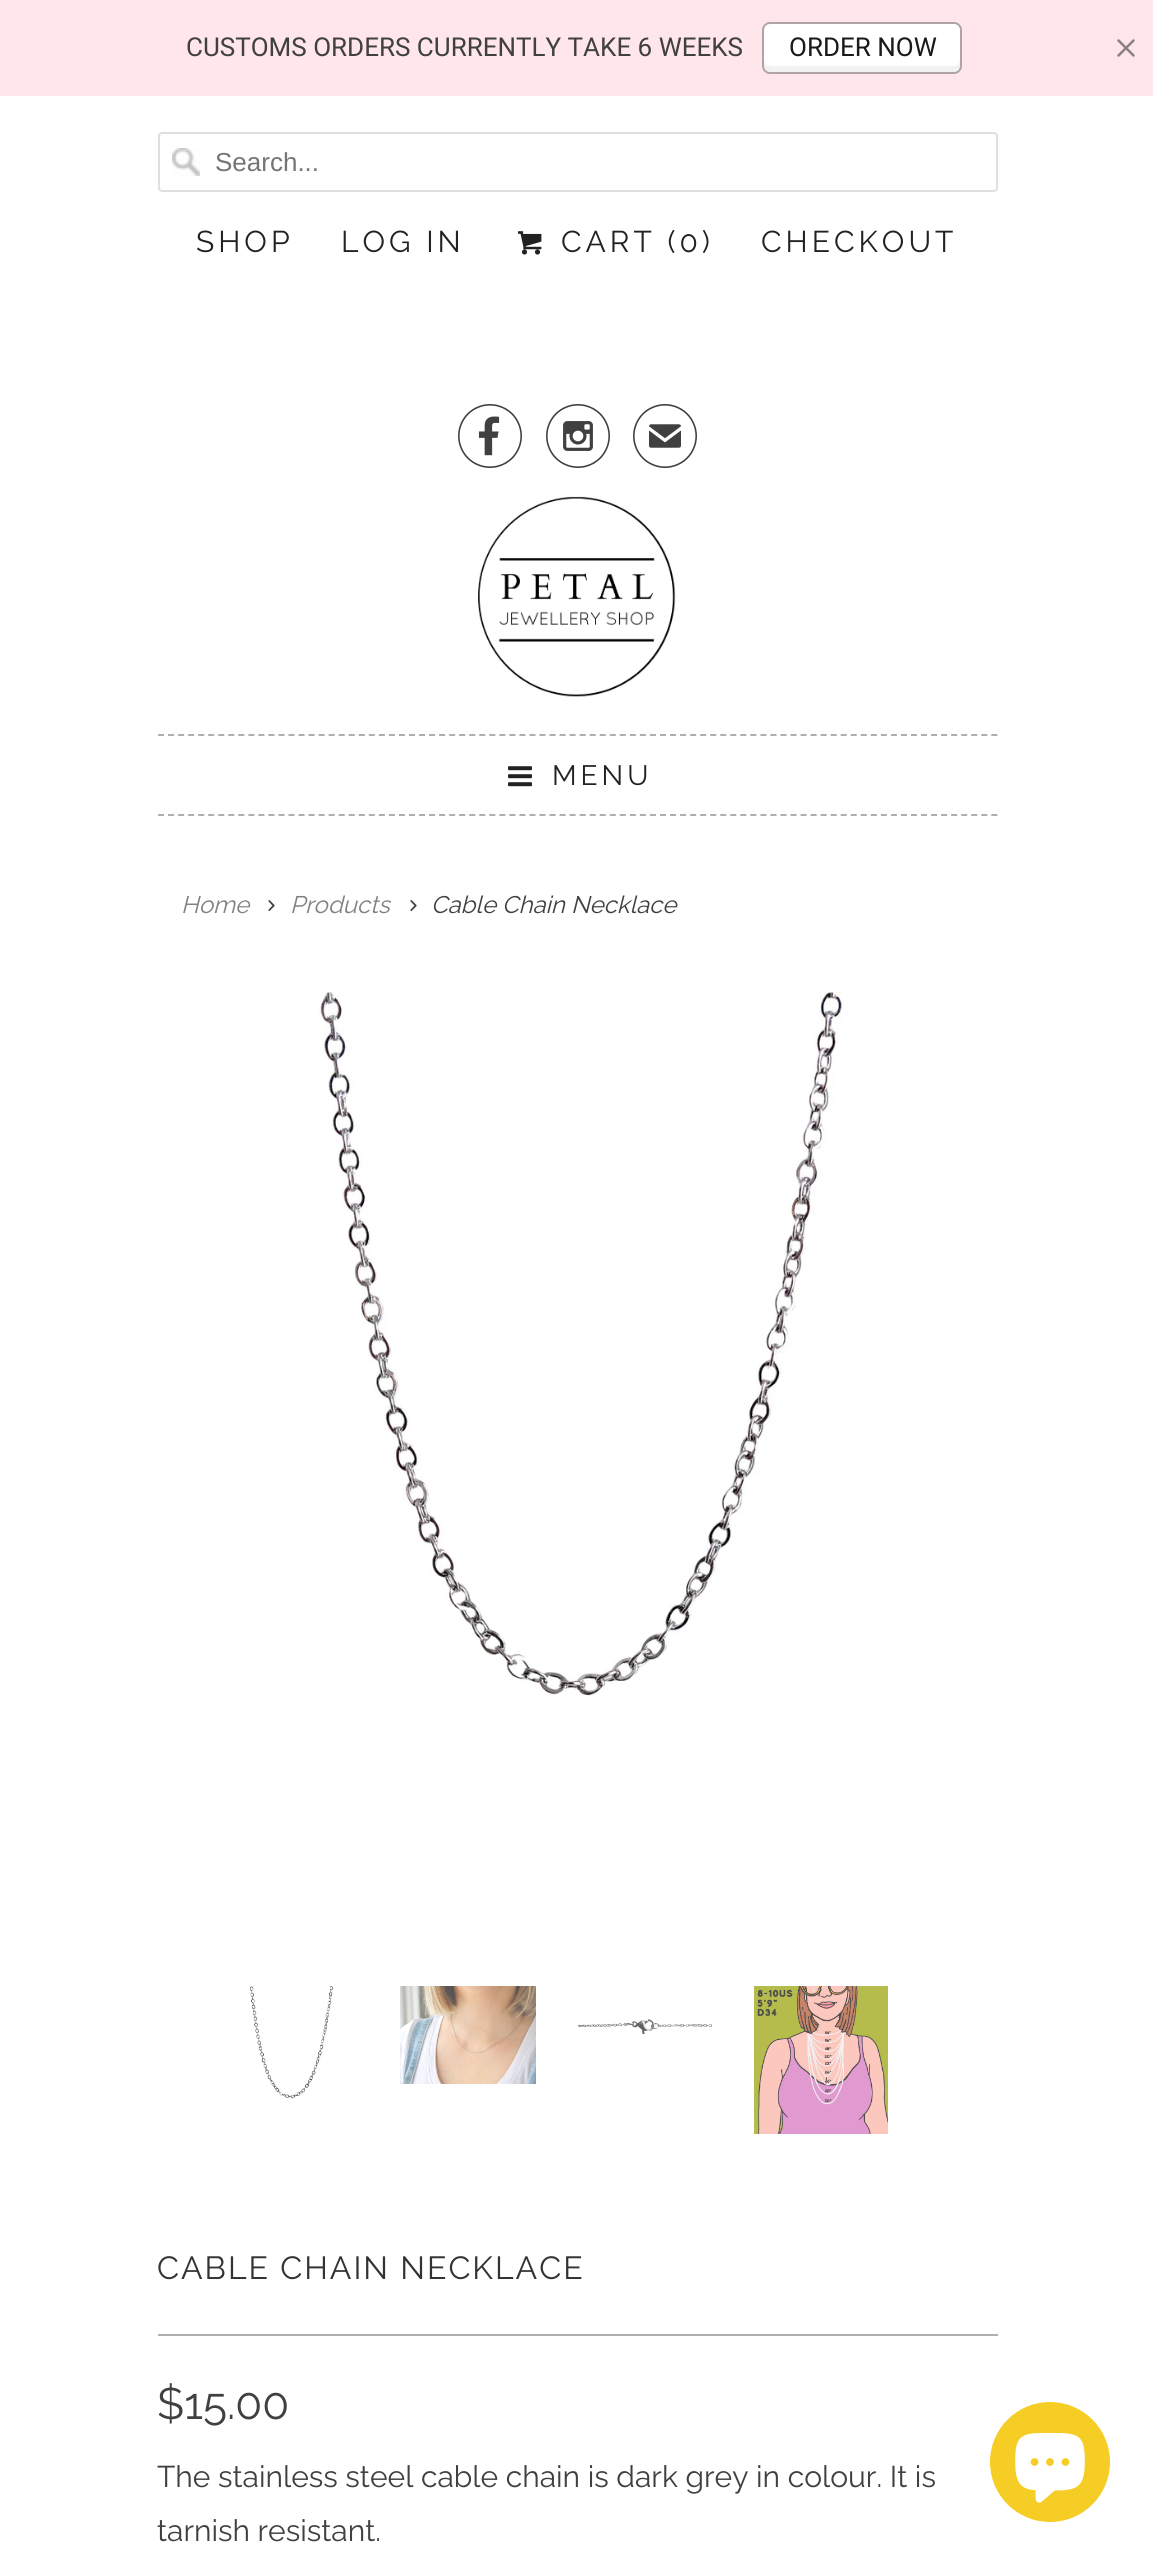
#include <cairo.h>
#include <math.h>
#include <stddef.h>


static void set_color(cairo_t *cr, unsigned color) {
    cairo_set_source_rgb(cr, (color >> 16) / 255.0, (color >> 8 & 255) / 255.0, (color & 255) / 255.0);
}

static void draw_text(cairo_t *cr, double x, double y, const char *s, const char *family, double size, int italic, int bold, unsigned color) {
    cairo_select_font_face(cr, family, italic ? CAIRO_FONT_SLANT_ITALIC : CAIRO_FONT_SLANT_NORMAL,
        bold ? CAIRO_FONT_WEIGHT_BOLD : CAIRO_FONT_WEIGHT_NORMAL);
    cairo_set_font_size(cr, size);
    set_color(cr, color);
    cairo_move_to(cr, x, y);
    cairo_show_text(cr, s);
}

static void draw_spaced(cairo_t *cr, double x, double y, const char *s, double letter, double word) {
    cairo_move_to(cr, x, y);
    while (*s) {
        char ch[5] = {0};
        int n = 0;
        do ch[n++] = *s++; while ((*s & 0xC0) == 0x80);
        cairo_show_text(cr, ch);
        cairo_rel_move_to(cr, letter + word * (*ch == ' '), 0);
    }
}

static void fill_rect(cairo_t *cr, double x, double y, double w, double h, unsigned color) {
    set_color(cr, color);
    cairo_rectangle(cr, x, y, w, h);
    cairo_fill(cr);
}

static void rounded_rect(cairo_t *cr, double x, double y, double w, double h, double r) {
    cairo_new_sub_path(cr);
    cairo_arc(cr, x + w - r, y + h - r, r, 0, M_PI / 2);
    cairo_arc(cr, x + r, y + h - r, r, M_PI / 2, M_PI);
    cairo_arc(cr, x + r, y + r, r, M_PI, 1.5 * M_PI);
    cairo_arc(cr, x + w - r, y + r, r, 1.5 * M_PI, 2 * M_PI);
    cairo_close_path(cr);
}

static void draw_image(cairo_t *cr, const char *path, double x, double y, double w, double h) {
    cairo_surface_t *image = cairo_image_surface_create_from_png(path);
    cairo_save(cr);
    cairo_set_source_surface(cr, image, x, y);
    cairo_rectangle(cr, x, y, w, h);
    cairo_fill(cr);
    cairo_restore(cr);
    cairo_surface_destroy(image);
}

int main(void) {
    cairo_surface_t *surface = cairo_image_surface_create(CAIRO_FORMAT_RGB24, 1153, 2563);
    cairo_t *cr = cairo_create(surface);
    cairo_font_options_t *options = cairo_font_options_create();
    cairo_font_options_set_hint_metrics(options, CAIRO_HINT_METRICS_OFF);
    cairo_font_options_set_hint_style(options, CAIRO_HINT_STYLE_NONE);
    cairo_set_font_options(cr, options);
    cairo_set_miter_limit(cr, 4);
    set_color(cr, 0xFFFFFF);
    cairo_paint(cr);
    fill_rect(cr, 0, 0, 1153, 96, 0xFFE6EB);
    draw_text(cr, 186, 56, "CUSTOMS ORDERS CURRENTLY TAKE 6 WEEKS", "Roboto", 26, 0, 0, 0x404040);
    set_color(cr, 0xFFFFFF);
    rounded_rect(cr, 762, 22, 200, 52, 8);
    cairo_fill(cr);
    set_color(cr, 0xF2F2F2);
    cairo_new_path(cr);
    cairo_move_to(cr, 764, 60);
    cairo_line_to(cr, 764, 66);
    cairo_curve_to(cr, 764, 69, 767, 72, 770, 72);
    cairo_line_to(cr, 954, 72);
    cairo_curve_to(cr, 957, 72, 960, 69, 960, 66);
    cairo_line_to(cr, 960, 60);
    cairo_curve_to(cr, 960, 63, 957, 66, 954, 66);
    cairo_line_to(cr, 770, 66);
    cairo_curve_to(cr, 767, 66, 764, 63, 764, 60);
    cairo_close_path(cr);
    cairo_fill(cr);
    rounded_rect(cr, 763, 23, 198, 50, 7);
    set_color(cr, 0xB1A2A5);
    cairo_stroke(cr);
    draw_text(cr, 789, 56, "ORDER NOW", "Roboto", 26, 0, 0, 0x1A1A1A);
    draw_image(cr, "assets/img1.png", 1117, 39, 18, 18);
    draw_image(cr, "assets/img2.png", 172, 148, 28, 28);
    rounded_rect(cr, 159, 133, 838, 58, 3);
    set_color(cr, 0xDFDFDF);
    cairo_stroke(cr);
    draw_text(cr, 215, 171, "Search...", "Liberation Sans", 26, 0, 0, 0x757575);
    cairo_select_font_face(cr, "Raleway Thin", CAIRO_FONT_SLANT_NORMAL, CAIRO_FONT_WEIGHT_NORMAL);
    cairo_set_font_size(cr, 30);
    set_color(cr, 0x222222);
    draw_spaced(cr, 196, 252, "SHOP", 4, 0);
    draw_spaced(cr, 341, 252, "LOG IN", 4, 0);
    draw_image(cr, "assets/img3.png", 518, 231, 24, 24);
    draw_spaced(cr, 561, 252, "CART (0)", 4, 0);
    draw_spaced(cr, 761, 252, "CHECKOUT", 4, 0);
    draw_image(cr, "assets/img4.png", 458, 404, 64, 64);
    draw_image(cr, "assets/img5.png", 546, 404, 64, 64);
    draw_text(cr, 633, 468, "✉", "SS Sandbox", 64, 0, 0, 0x404040);
    draw_image(cr, "assets/img6.png", 478, 496, 198, 201);
    cairo_new_path(cr);
    cairo_move_to(cr, 158, 735);
    cairo_line_to(cr, 998, 735);
    set_color(cr, 0xAEAEB0);
    cairo_set_dash(cr, (double[]){6, 4.04}, 2, 0);
    cairo_stroke(cr);
    cairo_new_path(cr);
    cairo_move_to(cr, 158, 815);
    cairo_line_to(cr, 998, 815);
    cairo_stroke(cr);
    draw_image(cr, "assets/img7.png", 508, 766, 24, 21);
    cairo_select_font_face(cr, "Raleway Thin", CAIRO_FONT_SLANT_NORMAL, CAIRO_FONT_WEIGHT_NORMAL);
    cairo_set_font_size(cr, 28);
    set_color(cr, 0x222222);
    draw_spaced(cr, 552, 785, "MENU", 4, 0);
    draw_text(cr, 181, 913, "Home", "Raleway Thin", 24, 1, 0, 0x808080);
    draw_image(cr, "assets/img8.png", 268, 900, 7, 12);
    draw_text(cr, 290, 913, "Products", "Raleway Thin", 24, 1, 0, 0x808080);
    draw_image(cr, "assets/img8.png", 410, 900, 7, 12);
    draw_text(cr, 431, 913, "Cable Chain Necklace", "Raleway Thin", 24, 1, 0, 0x404040);
    draw_image(cr, "assets/img9.png", 319, 992, 525, 704);
    draw_image(cr, "assets/img10.png", 249, 1986, 85, 113);
    draw_image(cr, "assets/img11.png", 400, 1986, 136, 98);
    draw_image(cr, "assets/img12.png", 578, 2019, 134, 15);
    draw_image(cr, "assets/img13.png", 754, 1986, 134, 148);
    fill_rect(cr, 158, 2334, 840, 2, 0xAEAEB0);
    cairo_select_font_face(cr, "Raleway Thin", CAIRO_FONT_SLANT_NORMAL, CAIRO_FONT_WEIGHT_NORMAL);
    cairo_set_font_size(cr, 32);
    set_color(cr, 0x333333);
    draw_spaced(cr, 157, 2279, "CABLE CHAIN NECKLACE", 2, 0);
    draw_text(cr, 157, 2419, "$15.00", "Raleway Thin", 44, 0, 0, 0x404040);
    draw_text(cr, 157, 2487, "The stainless steel cable chain is dark grey in colour. It is", "Raleway Thin", 30, 0, 0, 0x404040);
    draw_text(cr, 157, 2541, "tarnish resistant.", "Raleway Thin", 30, 0, 0, 0x404040);
    set_color(cr, 0xF5CD24);
    cairo_new_path(cr);
    cairo_arc(cr, 1050, 2462, 60, 0, 2 * M_PI);
    cairo_fill(cr);
    draw_image(cr, "assets/img14.png", 1015, 2433, 70, 70);
    cairo_surface_write_to_png(surface, "output.png");
    cairo_font_options_destroy(options);
    cairo_destroy(cr);
    cairo_surface_destroy(surface);
    return 0;
}
